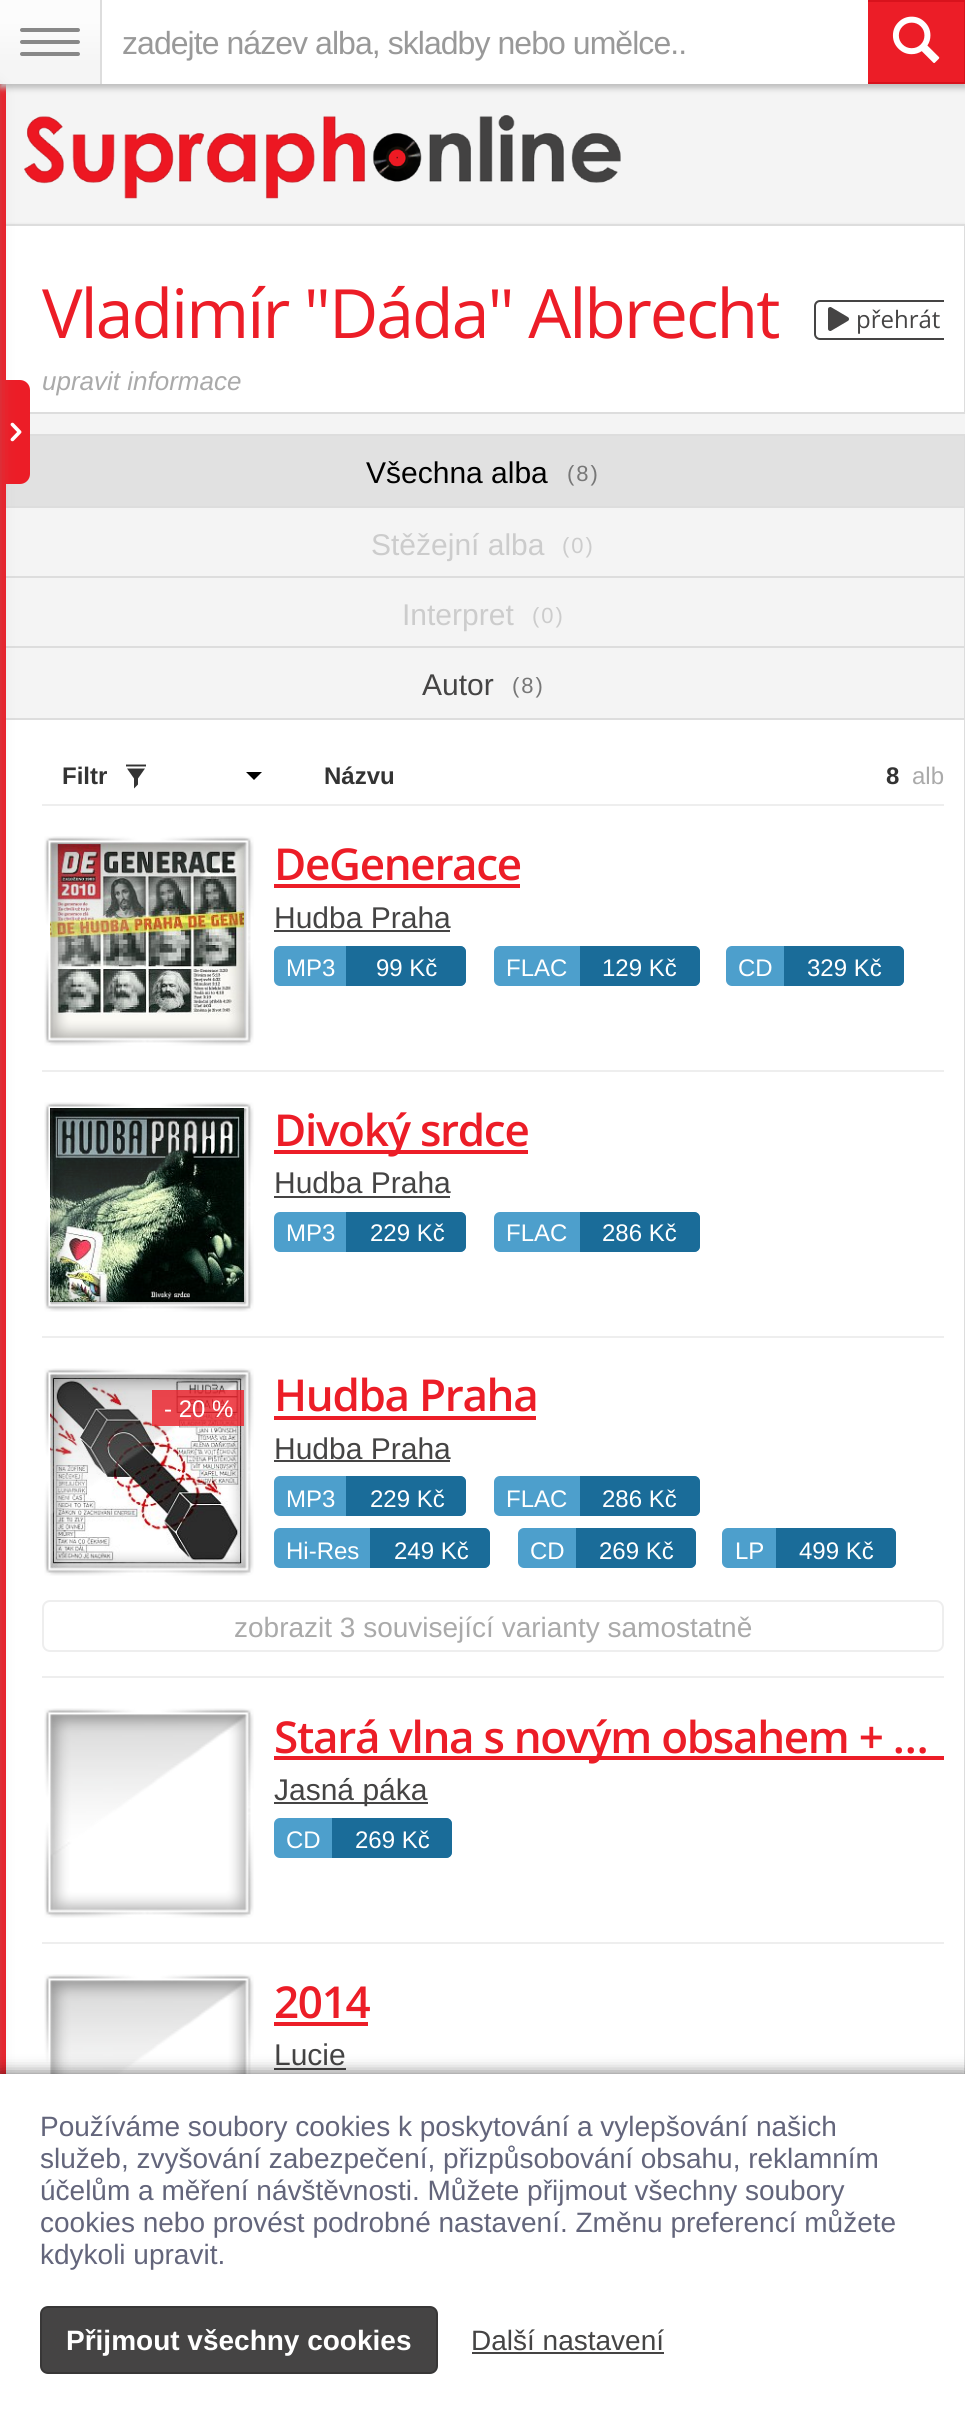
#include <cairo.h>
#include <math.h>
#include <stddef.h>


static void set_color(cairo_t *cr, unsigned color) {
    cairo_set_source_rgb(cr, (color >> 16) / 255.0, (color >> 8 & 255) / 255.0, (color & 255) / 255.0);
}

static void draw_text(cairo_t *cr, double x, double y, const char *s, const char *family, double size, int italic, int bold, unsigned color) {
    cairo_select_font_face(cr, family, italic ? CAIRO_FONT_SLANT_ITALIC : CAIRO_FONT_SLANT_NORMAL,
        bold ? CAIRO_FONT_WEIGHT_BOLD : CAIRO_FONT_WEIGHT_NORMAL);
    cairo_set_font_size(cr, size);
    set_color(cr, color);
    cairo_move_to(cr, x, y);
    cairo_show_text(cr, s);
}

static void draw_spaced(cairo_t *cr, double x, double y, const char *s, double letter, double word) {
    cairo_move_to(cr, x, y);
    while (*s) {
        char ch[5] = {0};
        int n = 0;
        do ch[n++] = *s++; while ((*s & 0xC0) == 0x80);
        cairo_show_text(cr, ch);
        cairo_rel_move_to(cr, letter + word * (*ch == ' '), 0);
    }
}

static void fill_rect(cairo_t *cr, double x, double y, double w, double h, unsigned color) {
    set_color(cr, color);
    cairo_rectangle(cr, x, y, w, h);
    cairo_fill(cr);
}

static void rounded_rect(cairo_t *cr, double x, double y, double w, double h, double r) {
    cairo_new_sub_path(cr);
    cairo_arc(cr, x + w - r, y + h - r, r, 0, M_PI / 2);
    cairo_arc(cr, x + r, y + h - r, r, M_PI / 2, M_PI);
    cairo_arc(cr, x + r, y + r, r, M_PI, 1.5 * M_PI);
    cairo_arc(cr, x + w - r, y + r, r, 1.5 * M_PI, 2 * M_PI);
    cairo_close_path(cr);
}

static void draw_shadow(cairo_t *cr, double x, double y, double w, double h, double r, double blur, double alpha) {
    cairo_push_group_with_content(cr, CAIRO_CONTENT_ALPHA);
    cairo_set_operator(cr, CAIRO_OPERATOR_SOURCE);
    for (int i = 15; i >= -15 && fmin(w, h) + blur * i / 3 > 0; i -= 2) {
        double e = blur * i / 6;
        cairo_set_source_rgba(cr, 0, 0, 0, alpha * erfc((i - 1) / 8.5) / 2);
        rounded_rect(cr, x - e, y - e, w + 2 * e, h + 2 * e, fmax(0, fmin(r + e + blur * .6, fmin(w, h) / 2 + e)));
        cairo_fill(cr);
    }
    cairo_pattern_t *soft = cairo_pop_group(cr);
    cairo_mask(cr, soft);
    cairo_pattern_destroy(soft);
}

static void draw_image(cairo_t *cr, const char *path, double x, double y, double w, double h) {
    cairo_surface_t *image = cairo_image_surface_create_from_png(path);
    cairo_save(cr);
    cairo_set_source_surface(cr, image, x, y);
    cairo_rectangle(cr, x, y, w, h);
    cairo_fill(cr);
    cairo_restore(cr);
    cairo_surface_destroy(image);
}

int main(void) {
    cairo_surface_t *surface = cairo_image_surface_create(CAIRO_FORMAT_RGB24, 965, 2413);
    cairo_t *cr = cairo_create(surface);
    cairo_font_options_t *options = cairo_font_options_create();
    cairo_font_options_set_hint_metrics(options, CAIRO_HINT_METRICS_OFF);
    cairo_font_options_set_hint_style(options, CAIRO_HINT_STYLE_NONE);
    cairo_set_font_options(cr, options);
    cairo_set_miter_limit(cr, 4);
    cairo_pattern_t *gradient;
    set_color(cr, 0xF4F4F4);
    cairo_paint(cr);
    set_color(cr, 0xE1E1E1);
    draw_shadow(cr, 0, 224, 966, 2162, 0, 1, 1);
    fill_rect(cr, 6, 226, 958, 186, 0xFFFFFF);
    cairo_rectangle(cr, 1, 225, 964, 2160);
    set_color(cr, 0xDDDDDD);
    cairo_stroke(cr);
    fill_rect(cr, 0, 718, 965, 2, 0xDDDDDD);
    fill_rect(cr, 2, 506, 962, 2, 0xDDDDDD);
    fill_rect(cr, 6, 508, 958, 210, 0xF4F4F4);
    fill_rect(cr, 2, 576, 962, 2, 0xDDDDDD);
    fill_rect(cr, 2, 646, 962, 2, 0xDDDDDD);
    fill_rect(cr, 0, 84, 6, 1990, 0xEC1D27);
    set_color(cr, 0xBBBBBB);
    draw_shadow(cr, 0, 4, 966, 84, 0, 3, 1);
    gradient = cairo_pattern_create_linear(483, 0, 483, 84);
    cairo_pattern_add_color_stop_rgba(gradient, 0.25, 0.988, 0.988, 0.988, 1);
    cairo_pattern_add_color_stop_rgba(gradient, 0.75, 0.961, 0.961, 0.961, 1);
    cairo_set_source(cr, gradient);
    cairo_pattern_destroy(gradient);
    cairo_rectangle(cr, 0, 0, 100, 84);
    cairo_fill(cr);
    set_color(cr, 0xEC1D27);
    cairo_new_path(cr);
    cairo_move_to(cr, 0, 380);
    cairo_line_to(cr, 20, 380);
    cairo_curve_to(cr, 25.5, 380, 30, 384.5, 30, 390);
    cairo_line_to(cr, 30, 474);
    cairo_curve_to(cr, 30, 479.5, 25.5, 484, 20, 484);
    cairo_line_to(cr, 0, 484);
    cairo_close_path(cr);
    cairo_fill(cr);
    draw_image(cr, "assets/img3.png", 10, 422, 12, 20);
    fill_rect(cr, 6, 720, 958, 1354, 0xFFFFFF);
    set_color(cr, 0x8B8B8B);
    draw_shadow(cr, -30, 92, 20, 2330, 0, 10, 1);
    set_color(cr, 0x888888);
    rounded_rect(cr, 20, 28, 60, 4, 2);
    cairo_fill(cr);
    rounded_rect(cr, 20, 40, 60, 4, 2);
    cairo_fill(cr);
    rounded_rect(cr, 20, 52, 60, 4, 2);
    cairo_fill(cr);
    set_color(cr, 0xEC1D27);
    cairo_rectangle(cr, 867, 1, 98, 82);
    cairo_fill_preserve(cr);
    set_color(cr, 0xD8121C);
    cairo_stroke(cr);
    fill_rect(cr, 102, 0, 766, 84, 0xFFFFFF);
    fill_rect(cr, 100, 0, 2, 84, 0xDDDDDD);
    cairo_select_font_face(cr, "Liberation Sans", CAIRO_FONT_SLANT_NORMAL, CAIRO_FONT_WEIGHT_NORMAL);
    cairo_set_font_size(cr, 32);
    set_color(cr, 0x999999);
    draw_spaced(cr, 122, 54, "zadejte název alba, skladby nebo umělce..", -0.95, 0);
    draw_image(cr, "assets/img1.png", 892, 16, 48, 47);
    draw_image(cr, "assets/img2.png", 24, 115, 597, 84);
    fill_rect(cr, 30, 412, 934, 2, 0xDDDDDD);
    cairo_select_font_face(cr, "Open Sans", CAIRO_FONT_SLANT_NORMAL, CAIRO_FONT_WEIGHT_NORMAL);
    cairo_set_font_size(cr, 68);
    set_color(cr, 0xEC1D27);
    draw_spaced(cr, 42, 338, "Vladimír \"Dáda\" Albrecht", -2, 0);
    cairo_save(cr);
    cairo_rectangle(cr, 42, 266, 902, 96);
    cairo_clip(cr);
    rounded_rect(cr, 815, 301, 136, 38, 5);
    set_color(cr, 0x454444);
    cairo_stroke(cr);
    cairo_restore(cr);
    draw_image(cr, "assets/img4.png", 828, 307, 21, 24);
    draw_text(cr, 856, 328, "přehrát", "Open Sans", 24, 0, 0, 0x454444);
    draw_text(cr, 42, 390, "upravit informace", "Liberation Sans", 26, 1, 0, 0xAAAAAA);
    fill_rect(cr, 30, 414, 935, 20, 0xF4F4F4);
    fill_rect(cr, 30, 434, 934, 2, 0xDDDDDD);
    draw_text(cr, 366, 483, "Všechna alba", "Liberation Sans", 30, 0, 0, 0x000000);
    cairo_set_font_size(cr, 22);
    set_color(cr, 0x777777);
    draw_spaced(cr, 567, 481, "(8)", 2, 0);
    draw_text(cr, 371, 555, "Stěžejní alba", "Liberation Sans", 30, 0, 0, 0xCCCCCC);
    cairo_set_font_size(cr, 22);
    draw_spaced(cr, 562, 553, "(0)", 2, 0);
    draw_text(cr, 402, 625, "Interpret", "Liberation Sans", 30, 0, 0, 0xCCCCCC);
    cairo_set_font_size(cr, 22);
    draw_spaced(cr, 532, 623, "(0)", 2, 0);
    draw_text(cr, 422, 695, "Autor", "Liberation Sans", 30, 0, 0, 0x454444);
    cairo_set_font_size(cr, 22);
    set_color(cr, 0x777777);
    draw_spaced(cr, 512, 693, "(8)", 2, 0);
    fill_rect(cr, 42, 804, 902, 2, 0xEEEEEE);
    draw_text(cr, 62, 784, "Filtr", "Liberation Sans", 24, 0, 1, 0x333333);
    draw_image(cr, "assets/img5.png", 126, 764, 20, 25);
    set_color(cr, 0x000000);
    cairo_new_path(cr);
    cairo_move_to(cr, 246, 772);
    cairo_line_to(cr, 262, 772);
    cairo_line_to(cr, 254, 780);
    cairo_close_path(cr);
    cairo_fill(cr);
    draw_text(cr, 324, 784, "Názvu", "Liberation Sans", 24, 0, 1, 0x333333);
    draw_text(cr, 886, 784, "8", "Liberation Sans", 24, 0, 1, 0x333333);
    draw_text(cr, 912, 784, "alb", "Liberation Sans", 24, 0, 0, 0xAAAAAA);
    draw_image(cr, "assets/img7.png", 50, 844, 194, 194);
    draw_image(cr, "assets/img6.png", 44, 836, 210, 210);
    cairo_select_font_face(cr, "Open Sans SemiBold", CAIRO_FONT_SLANT_NORMAL, CAIRO_FONT_WEIGHT_NORMAL);
    cairo_set_font_size(cr, 44);
    set_color(cr, 0xEC1D27);
    draw_spaced(cr, 274, 880, "DeGenerace", -1.3, 0);
    fill_rect(cr, 274, 884, 246, 4, 0xEC1D27);
    draw_text(cr, 274, 928, "Hudba Praha", "Liberation Sans", 30, 0, 0, 0x454444);
    fill_rect(cr, 274, 930, 176, 2, 0x454444);
    set_color(cr, 0x4D9FCC);
    rounded_rect(cr, 274, 946, 192, 40, 6);
    cairo_fill(cr);
    draw_text(cr, 286, 976, "MP3", "Liberation Sans", 24, 0, 0, 0xFFFFFF);
    set_color(cr, 0x1A6C99);
    cairo_new_path(cr);
    cairo_move_to(cr, 346, 946);
    cairo_line_to(cr, 460, 946);
    cairo_curve_to(cr, 463.5, 946, 466, 948.5, 466, 952);
    cairo_line_to(cr, 466, 980);
    cairo_curve_to(cr, 466, 983.5, 463.5, 986, 460, 986);
    cairo_line_to(cr, 346, 986);
    cairo_close_path(cr);
    cairo_fill(cr);
    draw_text(cr, 376, 976, "99 Kč", "Liberation Sans", 24, 0, 0, 0xFFFFFF);
    set_color(cr, 0x4D9FCC);
    rounded_rect(cr, 494, 946, 206, 40, 6);
    cairo_fill(cr);
    draw_text(cr, 506, 976, "FLAC", "Liberation Sans", 24, 0, 0, 0xFFFFFF);
    set_color(cr, 0x1A6C99);
    cairo_new_path(cr);
    cairo_move_to(cr, 580, 946);
    cairo_line_to(cr, 694, 946);
    cairo_curve_to(cr, 697.5, 946, 700, 948.5, 700, 952);
    cairo_line_to(cr, 700, 980);
    cairo_curve_to(cr, 700, 983.5, 697.5, 986, 694, 986);
    cairo_line_to(cr, 580, 986);
    cairo_close_path(cr);
    cairo_fill(cr);
    draw_text(cr, 602, 976, "129 Kč", "Liberation Sans", 24, 0, 0, 0xFFFFFF);
    set_color(cr, 0x4D9FCC);
    rounded_rect(cr, 726, 946, 178, 40, 6);
    cairo_fill(cr);
    draw_text(cr, 738, 976, "CD", "Liberation Sans", 24, 0, 0, 0xFFFFFF);
    set_color(cr, 0x1A6C99);
    cairo_new_path(cr);
    cairo_move_to(cr, 784, 946);
    cairo_line_to(cr, 898, 946);
    cairo_curve_to(cr, 901.5, 946, 904, 948.5, 904, 952);
    cairo_line_to(cr, 904, 980);
    cairo_curve_to(cr, 904, 983.5, 901.5, 986, 898, 986);
    cairo_line_to(cr, 784, 986);
    cairo_close_path(cr);
    cairo_fill(cr);
    draw_text(cr, 807, 976, "329 Kč", "Liberation Sans", 24, 0, 0, 0xFFFFFF);
    fill_rect(cr, 42, 1070, 902, 2, 0xEEEEEE);
    draw_image(cr, "assets/img9.png", 50, 1108, 194, 194);
    draw_image(cr, "assets/img8.png", 44, 1102, 210, 210);
    fill_rect(cr, 274, 1150, 254, 4, 0xEC1D27);
    cairo_select_font_face(cr, "Open Sans SemiBold", CAIRO_FONT_SLANT_NORMAL, CAIRO_FONT_WEIGHT_NORMAL);
    cairo_set_font_size(cr, 44);
    draw_spaced(cr, 274, 1146, "Divoký srdce", -1.3, 0);
    draw_text(cr, 274, 1193, "Hudba Praha", "Liberation Sans", 30, 0, 0, 0x454444);
    fill_rect(cr, 274, 1196, 176, 2, 0x454444);
    set_color(cr, 0x4D9FCC);
    rounded_rect(cr, 274, 1212, 192, 40, 6);
    cairo_fill(cr);
    draw_text(cr, 286, 1241, "MP3", "Liberation Sans", 24, 0, 0, 0xFFFFFF);
    set_color(cr, 0x1A6C99);
    cairo_new_path(cr);
    cairo_move_to(cr, 346, 1212);
    cairo_line_to(cr, 460, 1212);
    cairo_curve_to(cr, 463.5, 1212, 466, 1214.5, 466, 1218);
    cairo_line_to(cr, 466, 1246);
    cairo_curve_to(cr, 466, 1249.5, 463.5, 1252, 460, 1252);
    cairo_line_to(cr, 346, 1252);
    cairo_close_path(cr);
    cairo_fill(cr);
    draw_text(cr, 370, 1241, "229 Kč", "Liberation Sans", 24, 0, 0, 0xFFFFFF);
    set_color(cr, 0x4D9FCC);
    rounded_rect(cr, 494, 1212, 206, 40, 6);
    cairo_fill(cr);
    draw_text(cr, 506, 1241, "FLAC", "Liberation Sans", 24, 0, 0, 0xFFFFFF);
    set_color(cr, 0x1A6C99);
    cairo_new_path(cr);
    cairo_move_to(cr, 580, 1212);
    cairo_line_to(cr, 694, 1212);
    cairo_curve_to(cr, 697.5, 1212, 700, 1214.5, 700, 1218);
    cairo_line_to(cr, 700, 1246);
    cairo_curve_to(cr, 700, 1249.5, 697.5, 1252, 694, 1252);
    cairo_line_to(cr, 580, 1252);
    cairo_close_path(cr);
    cairo_fill(cr);
    draw_text(cr, 602, 1241, "286 Kč", "Liberation Sans", 24, 0, 0, 0xFFFFFF);
    fill_rect(cr, 42, 1336, 902, 2, 0xEEEEEE);
    draw_image(cr, "assets/img11.png", 50, 1374, 194, 194);
    draw_image(cr, "assets/img10.png", 44, 1368, 210, 208);
    cairo_set_source_rgba(cr, 0.925, 0.114, 0.153, 0.8);
    cairo_rectangle(cr, 152, 1390, 92, 36);
    cairo_fill(cr);
    draw_text(cr, 164, 1417, "- 20 %", "Liberation Sans", 24, 0, 0, 0xFFFFFF);
    cairo_select_font_face(cr, "Open Sans SemiBold", CAIRO_FONT_SLANT_NORMAL, CAIRO_FONT_WEIGHT_NORMAL);
    cairo_set_font_size(cr, 44);
    set_color(cr, 0xEC1D27);
    draw_spaced(cr, 274, 1411, "Hudba Praha", -1.3, 0);
    fill_rect(cr, 274, 1416, 262, 4, 0xEC1D27);
    draw_text(cr, 274, 1459, "Hudba Praha", "Liberation Sans", 30, 0, 0, 0x454444);
    fill_rect(cr, 274, 1460, 176, 2, 0x454444);
    set_color(cr, 0x4D9FCC);
    rounded_rect(cr, 274, 1476, 192, 40, 6);
    cairo_fill(cr);
    draw_text(cr, 286, 1507, "MP3", "Liberation Sans", 24, 0, 0, 0xFFFFFF);
    set_color(cr, 0x1A6C99);
    cairo_new_path(cr);
    cairo_move_to(cr, 346, 1476);
    cairo_line_to(cr, 460, 1476);
    cairo_curve_to(cr, 463.5, 1476, 466, 1478.5, 466, 1482);
    cairo_line_to(cr, 466, 1510);
    cairo_curve_to(cr, 466, 1513.5, 463.5, 1516, 460, 1516);
    cairo_line_to(cr, 346, 1516);
    cairo_close_path(cr);
    cairo_fill(cr);
    draw_text(cr, 370, 1507, "229 Kč", "Liberation Sans", 24, 0, 0, 0xFFFFFF);
    set_color(cr, 0x4D9FCC);
    rounded_rect(cr, 494, 1476, 206, 40, 6);
    cairo_fill(cr);
    draw_text(cr, 506, 1507, "FLAC", "Liberation Sans", 24, 0, 0, 0xFFFFFF);
    set_color(cr, 0x1A6C99);
    cairo_new_path(cr);
    cairo_move_to(cr, 580, 1476);
    cairo_line_to(cr, 694, 1476);
    cairo_curve_to(cr, 697.5, 1476, 700, 1478.5, 700, 1482);
    cairo_line_to(cr, 700, 1510);
    cairo_curve_to(cr, 700, 1513.5, 697.5, 1516, 694, 1516);
    cairo_line_to(cr, 580, 1516);
    cairo_close_path(cr);
    cairo_fill(cr);
    draw_text(cr, 602, 1507, "286 Kč", "Liberation Sans", 24, 0, 0, 0xFFFFFF);
    set_color(cr, 0x4D9FCC);
    rounded_rect(cr, 274, 1528, 216, 40, 6);
    cairo_fill(cr);
    draw_text(cr, 286, 1559, "Hi-Res", "Liberation Sans", 24, 0, 0, 0xFFFFFF);
    set_color(cr, 0x1A6C99);
    cairo_new_path(cr);
    cairo_move_to(cr, 370, 1528);
    cairo_line_to(cr, 484, 1528);
    cairo_curve_to(cr, 487.5, 1528, 490, 1530.5, 490, 1534);
    cairo_line_to(cr, 490, 1562);
    cairo_curve_to(cr, 490, 1565.5, 487.5, 1568, 484, 1568);
    cairo_line_to(cr, 370, 1568);
    cairo_close_path(cr);
    cairo_fill(cr);
    draw_text(cr, 394, 1559, "249 Kč", "Liberation Sans", 24, 0, 0, 0xFFFFFF);
    set_color(cr, 0x4D9FCC);
    rounded_rect(cr, 518, 1528, 178, 40, 6);
    cairo_fill(cr);
    draw_text(cr, 530, 1559, "CD", "Liberation Sans", 24, 0, 0, 0xFFFFFF);
    set_color(cr, 0x1A6C99);
    cairo_new_path(cr);
    cairo_move_to(cr, 576, 1528);
    cairo_line_to(cr, 690, 1528);
    cairo_curve_to(cr, 693.5, 1528, 696, 1530.5, 696, 1534);
    cairo_line_to(cr, 696, 1562);
    cairo_curve_to(cr, 696, 1565.5, 693.5, 1568, 690, 1568);
    cairo_line_to(cr, 576, 1568);
    cairo_close_path(cr);
    cairo_fill(cr);
    draw_text(cr, 599, 1559, "269 Kč", "Liberation Sans", 24, 0, 0, 0xFFFFFF);
    set_color(cr, 0x4D9FCC);
    rounded_rect(cr, 722, 1528, 174, 40, 6);
    cairo_fill(cr);
    draw_text(cr, 735, 1559, "LP", "Liberation Sans", 24, 0, 0, 0xFFFFFF);
    set_color(cr, 0x1A6C99);
    cairo_new_path(cr);
    cairo_move_to(cr, 776, 1528);
    cairo_line_to(cr, 890, 1528);
    cairo_curve_to(cr, 893.5, 1528, 896, 1530.5, 896, 1534);
    cairo_line_to(cr, 896, 1562);
    cairo_curve_to(cr, 896, 1565.5, 893.5, 1568, 890, 1568);
    cairo_line_to(cr, 776, 1568);
    cairo_close_path(cr);
    cairo_fill(cr);
    draw_text(cr, 799, 1559, "499 Kč", "Liberation Sans", 24, 0, 0, 0xFFFFFF);
    rounded_rect(cr, 43, 1601, 900, 50, 7);
    set_color(cr, 0xEEEEEE);
    cairo_stroke(cr);
    draw_text(cr, 234, 1637, "zobrazit 3 související varianty samostatně", "Liberation Sans", 28, 0, 0, 0xAAAAAA);
    fill_rect(cr, 42, 1676, 902, 2, 0xEEEEEE);
    draw_image(cr, "assets/img12.png", 44, 1708, 210, 210);
    fill_rect(cr, 274, 1756, 670, 4, 0xEC1D27);
    cairo_select_font_face(cr, "Open Sans SemiBold", CAIRO_FONT_SLANT_NORMAL, CAIRO_FONT_WEIGHT_NORMAL);
    cairo_set_font_size(cr, 44);
    draw_spaced(cr, 274, 1753, "Stará vlna s novým obsahem + …", -1.3, 0);
    fill_rect(cr, 274, 1802, 154, 2, 0x454444);
    draw_text(cr, 274, 1800, "Jasná páka", "Liberation Sans", 30, 0, 0, 0x454444);
    set_color(cr, 0x4D9FCC);
    rounded_rect(cr, 274, 1818, 178, 40, 6);
    cairo_fill(cr);
    draw_text(cr, 286, 1848, "CD", "Liberation Sans", 24, 0, 0, 0xFFFFFF);
    set_color(cr, 0x1A6C99);
    cairo_new_path(cr);
    cairo_move_to(cr, 332, 1818);
    cairo_line_to(cr, 446, 1818);
    cairo_curve_to(cr, 449.5, 1818, 452, 1820.5, 452, 1824);
    cairo_line_to(cr, 452, 1852);
    cairo_curve_to(cr, 452, 1855.5, 449.5, 1858, 446, 1858);
    cairo_line_to(cr, 332, 1858);
    cairo_close_path(cr);
    cairo_fill(cr);
    draw_text(cr, 355, 1848, "269 Kč", "Liberation Sans", 24, 0, 0, 0xFFFFFF);
    fill_rect(cr, 42, 1942, 902, 2, 0xEEEEEE);
    draw_image(cr, "assets/img13.png", 44, 1974, 210, 100);
    cairo_select_font_face(cr, "Open Sans SemiBold", CAIRO_FONT_SLANT_NORMAL, CAIRO_FONT_WEIGHT_NORMAL);
    cairo_set_font_size(cr, 44);
    set_color(cr, 0xEC1D27);
    draw_spaced(cr, 274, 2018, "2014", -1.3, 0);
    fill_rect(cr, 274, 2022, 94, 4, 0xEC1D27);
    draw_text(cr, 274, 2065, "Lucie", "Liberation Sans", 30, 0, 0, 0x454444);
    fill_rect(cr, 274, 2068, 72, 2, 0x454444);
    set_color(cr, 0x000000);
    draw_shadow(cr, 0, 2074, 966, 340, 0, 8, 0.6);
    fill_rect(cr, 0, 2074, 965, 339, 0xFFFFFF);
    draw_text(cr, 40, 2136, "Používáme soubory cookies k poskytování a vylepšování našich", "Liberation Sans", 28, 0, 0, 0x63657B);
    draw_text(cr, 40, 2168, "služeb, zvyšování zabezpečení, přizpůsobování obsahu, reklamním", "Liberation Sans", 28, 0, 0, 0x63657B);
    draw_text(cr, 40, 2200, "účelům a měření návštěvnosti. Můžete přijmout všechny soubory", "Liberation Sans", 28, 0, 0, 0x63657B);
    draw_text(cr, 40, 2232, "cookies nebo provést podrobné nastavení. Změnu preferencí můžete", "Liberation Sans", 28, 0, 0, 0x63657B);
    draw_text(cr, 40, 2264, "kdykoli upravit.", "Liberation Sans", 28, 0, 0, 0x63657B);
    set_color(cr, 0x454444);
    rounded_rect(cr, 41, 2307, 396, 66, 7);
    cairo_fill_preserve(cr);
    set_color(cr, 0x383737);
    cairo_stroke(cr);
    draw_text(cr, 66, 2350, "Přijmout všechny cookies", "Liberation Sans", 28, 0, 1, 0xFFFFFF);
    draw_text(cr, 471, 2350, "Další nastavení", "Liberation Sans", 28, 0, 0, 0x454444);
    fill_rect(cr, 472, 2352, 192, 2, 0x454444);
    cairo_surface_write_to_png(surface, "output.png");
    cairo_font_options_destroy(options);
    cairo_destroy(cr);
    cairo_surface_destroy(surface);
    return 0;
}
